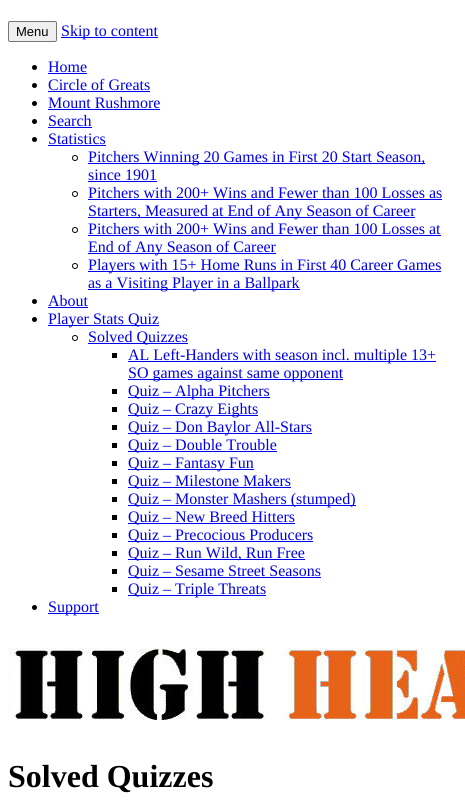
#include <cairo.h>
#include <math.h>
#include <stddef.h>


static void set_color(cairo_t *cr, unsigned color) {
    cairo_set_source_rgb(cr, (color >> 16) / 255.0, (color >> 8 & 255) / 255.0, (color & 255) / 255.0);
}

static void draw_text(cairo_t *cr, double x, double y, const char *s, const char *family, double size, int italic, int bold, unsigned color) {
    cairo_select_font_face(cr, family, italic ? CAIRO_FONT_SLANT_ITALIC : CAIRO_FONT_SLANT_NORMAL,
        bold ? CAIRO_FONT_WEIGHT_BOLD : CAIRO_FONT_WEIGHT_NORMAL);
    cairo_set_font_size(cr, size);
    set_color(cr, color);
    cairo_move_to(cr, x, y);
    cairo_show_text(cr, s);
}

static void fill_rect(cairo_t *cr, double x, double y, double w, double h, unsigned color) {
    set_color(cr, color);
    cairo_rectangle(cr, x, y, w, h);
    cairo_fill(cr);
}

static void rounded_rect(cairo_t *cr, double x, double y, double w, double h, double r) {
    cairo_new_sub_path(cr);
    cairo_arc(cr, x + w - r, y + h - r, r, 0, M_PI / 2);
    cairo_arc(cr, x + r, y + h - r, r, M_PI / 2, M_PI);
    cairo_arc(cr, x + r, y + r, r, M_PI, 1.5 * M_PI);
    cairo_arc(cr, x + w - r, y + r, r, 1.5 * M_PI, 2 * M_PI);
    cairo_close_path(cr);
}

static void draw_image(cairo_t *cr, const char *path, double x, double y, double w, double h) {
    cairo_surface_t *image = cairo_image_surface_create_from_png(path);
    cairo_save(cr);
    cairo_set_source_surface(cr, image, x, y);
    cairo_rectangle(cr, x, y, w, h);
    cairo_fill(cr);
    cairo_restore(cr);
    cairo_surface_destroy(image);
}

int main(void) {
    cairo_surface_t *surface = cairo_image_surface_create(CAIRO_FORMAT_RGB24, 465, 806);
    cairo_t *cr = cairo_create(surface);
    cairo_font_options_t *options = cairo_font_options_create();
    cairo_font_options_set_hint_metrics(options, CAIRO_HINT_METRICS_OFF);
    cairo_font_options_set_hint_style(options, CAIRO_HINT_STYLE_NONE);
    cairo_set_font_options(cr, options);
    cairo_set_miter_limit(cr, 4);
    set_color(cr, 0xFFFFFF);
    cairo_paint(cr);
    set_color(cr, 0xEFEFEF);
    rounded_rect(cr, 8.5, 21.5, 48, 20, 1.5);
    cairo_fill_preserve(cr);
    set_color(cr, 0x767676);
    cairo_set_line_width(cr, 1);
    cairo_stroke(cr);
    draw_text(cr, 16, 36, "Menu", "Liberation Sans", 13, 0, 0, 0x000000);
    fill_rect(cr, 61, 37, 97, 1, 0x0000EE);
    draw_text(cr, 61, 36, "Skip to content", "Liberation Serif", 16, 0, 0, 0x0000EE);
    set_color(cr, 0x000000);
    cairo_new_path(cr);
    cairo_arc(cr, 34.5, 67.5, 2.5, 0, 2 * M_PI);
    cairo_fill(cr);
    draw_text(cr, 48, 72, "Home", "Liberation Serif", 16, 0, 0, 0x0000EE);
    fill_rect(cr, 48, 73, 39, 1, 0x0000EE);
    set_color(cr, 0x000000);
    cairo_new_path(cr);
    cairo_arc(cr, 34.5, 85.5, 2.5, 0, 2 * M_PI);
    cairo_fill(cr);
    draw_text(cr, 48, 90, "Circle of Greats", "Liberation Serif", 16, 0, 0, 0x0000EE);
    fill_rect(cr, 48, 91, 102, 1, 0x0000EE);
    set_color(cr, 0x000000);
    cairo_new_path(cr);
    cairo_arc(cr, 34.5, 103.5, 2.5, 0, 2 * M_PI);
    cairo_fill(cr);
    draw_text(cr, 48, 108, "Mount Rushmore", "Liberation Serif", 16, 0, 0, 0x0000EE);
    fill_rect(cr, 48, 109, 112, 1, 0x0000EE);
    set_color(cr, 0x000000);
    cairo_new_path(cr);
    cairo_arc(cr, 34.5, 121.5, 2.5, 0, 2 * M_PI);
    cairo_fill(cr);
    draw_text(cr, 48, 126, "Search", "Liberation Serif", 16, 0, 0, 0x0000EE);
    fill_rect(cr, 48, 127, 44, 1, 0x0000EE);
    set_color(cr, 0x000000);
    cairo_new_path(cr);
    cairo_arc(cr, 34.5, 139.5, 2.5, 0, 2 * M_PI);
    cairo_fill(cr);
    draw_text(cr, 48, 144, "Statistics", "Liberation Serif", 16, 0, 0, 0x0000EE);
    fill_rect(cr, 48, 145, 58, 1, 0x0000EE);
    cairo_new_path(cr);
    cairo_arc(cr, 75, 158, 2.5, 0, 2 * M_PI);
    set_color(cr, 0x000000);
    cairo_stroke(cr);
    fill_rect(cr, 88, 163, 337, 1, 0x0000EE);
    draw_text(cr, 88, 162, "Pitchers Winning 20 Games in First 20 Start Season,", "Liberation Serif", 16, 0, 0, 0x0000EE);
    draw_text(cr, 88, 180, "since 1901", "Liberation Serif", 16, 0, 0, 0x0000EE);
    fill_rect(cr, 88, 181, 69, 1, 0x0000EE);
    cairo_new_path(cr);
    cairo_arc(cr, 75, 194, 2.5, 0, 2 * M_PI);
    set_color(cr, 0x000000);
    cairo_stroke(cr);
    draw_text(cr, 88, 198, "Pitchers with 200+ Wins and Fewer than 100 Losses as", "Liberation Serif", 16, 0, 0, 0x0000EE);
    fill_rect(cr, 88, 199, 354, 1, 0x0000EE);
    fill_rect(cr, 88, 217, 327, 1, 0x0000EE);
    draw_text(cr, 88, 216, "Starters, Measured at End of Any Season of Career", "Liberation Serif", 16, 0, 0, 0x0000EE);
    cairo_new_path(cr);
    cairo_arc(cr, 75, 230, 2.5, 0, 2 * M_PI);
    set_color(cr, 0x000000);
    cairo_stroke(cr);
    draw_text(cr, 88, 234, "Pitchers with 200+ Wins and Fewer than 100 Losses at", "Liberation Serif", 16, 0, 0, 0x0000EE);
    fill_rect(cr, 88, 235, 353, 1, 0x0000EE);
    fill_rect(cr, 88, 253, 188, 1, 0x0000EE);
    draw_text(cr, 88, 252, "End of Any Season of Career", "Liberation Serif", 16, 0, 0, 0x0000EE);
    cairo_new_path(cr);
    cairo_arc(cr, 75, 266, 2.5, 0, 2 * M_PI);
    set_color(cr, 0x000000);
    cairo_stroke(cr);
    fill_rect(cr, 88, 271, 353, 1, 0x0000EE);
    draw_text(cr, 88, 270, "Players with 15+ Home Runs in First 40 Career Games", "Liberation Serif", 16, 0, 0, 0x0000EE);
    fill_rect(cr, 88, 289, 212, 1, 0x0000EE);
    draw_text(cr, 88, 288, "as a Visiting Player in a Ballpark", "Liberation Serif", 16, 0, 0, 0x0000EE);
    set_color(cr, 0x000000);
    cairo_new_path(cr);
    cairo_arc(cr, 34.5, 301.5, 2.5, 0, 2 * M_PI);
    cairo_fill(cr);
    draw_text(cr, 48, 306, "About", "Liberation Serif", 16, 0, 0, 0x0000EE);
    fill_rect(cr, 48, 307, 40, 1, 0x0000EE);
    set_color(cr, 0x000000);
    cairo_new_path(cr);
    cairo_arc(cr, 34.5, 319.5, 2.5, 0, 2 * M_PI);
    cairo_fill(cr);
    fill_rect(cr, 48, 325, 111, 1, 0x0000EE);
    draw_text(cr, 48, 324, "Player Stats Quiz", "Liberation Serif", 16, 0, 0, 0x0000EE);
    cairo_new_path(cr);
    cairo_arc(cr, 75, 338, 2.5, 0, 2 * M_PI);
    set_color(cr, 0x000000);
    cairo_stroke(cr);
    fill_rect(cr, 88, 343, 100, 1, 0x0000EE);
    draw_text(cr, 88, 342, "Solved Quizzes", "Liberation Serif", 16, 0, 0, 0x0000EE);
    fill_rect(cr, 112, 353, 5, 5, 0x000000);
    fill_rect(cr, 128, 361, 308, 1, 0x0000EE);
    draw_text(cr, 128, 360, "AL Left-Handers with season incl. multiple 13+", "Liberation Serif", 16, 0, 0, 0x0000EE);
    fill_rect(cr, 128, 379, 215, 1, 0x0000EE);
    draw_text(cr, 128, 378, "SO games against same opponent", "Liberation Serif", 16, 0, 0, 0x0000EE);
    fill_rect(cr, 112, 389, 5, 5, 0x000000);
    fill_rect(cr, 128, 397, 142, 1, 0x0000EE);
    draw_text(cr, 128, 396, "Quiz – Alpha Pitchers", "Liberation Serif", 16, 0, 0, 0x0000EE);
    fill_rect(cr, 112, 407, 5, 5, 0x000000);
    fill_rect(cr, 128, 415, 130, 1, 0x0000EE);
    draw_text(cr, 128, 414, "Quiz – Crazy Eights", "Liberation Serif", 16, 0, 0, 0x0000EE);
    fill_rect(cr, 112, 425, 5, 5, 0x000000);
    fill_rect(cr, 128, 433, 184, 1, 0x0000EE);
    draw_text(cr, 128, 432, "Quiz – Don Baylor All-Stars", "Liberation Serif", 16, 0, 0, 0x0000EE);
    fill_rect(cr, 112, 443, 5, 5, 0x000000);
    fill_rect(cr, 128, 451, 149, 1, 0x0000EE);
    draw_text(cr, 128, 450, "Quiz – Double Trouble", "Liberation Serif", 16, 0, 0, 0x0000EE);
    fill_rect(cr, 112, 461, 5, 5, 0x000000);
    fill_rect(cr, 128, 469, 126, 1, 0x0000EE);
    draw_text(cr, 128, 468, "Quiz – Fantasy Fun", "Liberation Serif", 16, 0, 0, 0x0000EE);
    fill_rect(cr, 112, 479, 5, 5, 0x000000);
    fill_rect(cr, 128, 487, 163, 1, 0x0000EE);
    draw_text(cr, 128, 486, "Quiz – Milestone Makers", "Liberation Serif", 16, 0, 0, 0x0000EE);
    fill_rect(cr, 112, 497, 5, 5, 0x000000);
    fill_rect(cr, 128, 505, 228, 1, 0x0000EE);
    draw_text(cr, 128, 504, "Quiz – Monster Mashers (stumped)", "Liberation Serif", 16, 0, 0, 0x0000EE);
    fill_rect(cr, 112, 515, 5, 5, 0x000000);
    fill_rect(cr, 128, 523, 167, 1, 0x0000EE);
    draw_text(cr, 128, 522, "Quiz – New Breed Hitters", "Liberation Serif", 16, 0, 0, 0x0000EE);
    fill_rect(cr, 112, 533, 5, 5, 0x000000);
    fill_rect(cr, 128, 541, 185, 1, 0x0000EE);
    draw_text(cr, 128, 540, "Quiz – Precocious Producers", "Liberation Serif", 16, 0, 0, 0x0000EE);
    fill_rect(cr, 112, 551, 5, 5, 0x000000);
    fill_rect(cr, 128, 559, 177, 1, 0x0000EE);
    draw_text(cr, 128, 558, "Quiz – Run Wild, Run Free", "Liberation Serif", 16, 0, 0, 0x0000EE);
    fill_rect(cr, 112, 569, 5, 5, 0x000000);
    fill_rect(cr, 128, 577, 193, 1, 0x0000EE);
    draw_text(cr, 128, 576, "Quiz – Sesame Street Seasons", "Liberation Serif", 16, 0, 0, 0x0000EE);
    fill_rect(cr, 112, 587, 5, 5, 0x000000);
    fill_rect(cr, 128, 595, 138, 1, 0x0000EE);
    draw_text(cr, 128, 594, "Quiz – Triple Threats", "Liberation Serif", 16, 0, 0, 0x0000EE);
    set_color(cr, 0x000000);
    cairo_new_path(cr);
    cairo_arc(cr, 34.5, 607.5, 2.5, 0, 2 * M_PI);
    cairo_fill(cr);
    fill_rect(cr, 48, 613, 51, 1, 0x0000EE);
    draw_text(cr, 48, 612, "Support", "Liberation Serif", 16, 0, 0, 0x0000EE);
    draw_image(cr, "assets/img1.png", 8, 648, 457, 72);
    draw_text(cr, 8, 787, "Solved Quizzes", "Liberation Serif", 32, 0, 1, 0x000000);
    cairo_surface_write_to_png(surface, "output.png");
    cairo_font_options_destroy(options);
    cairo_destroy(cr);
    cairo_surface_destroy(surface);
    return 0;
}
